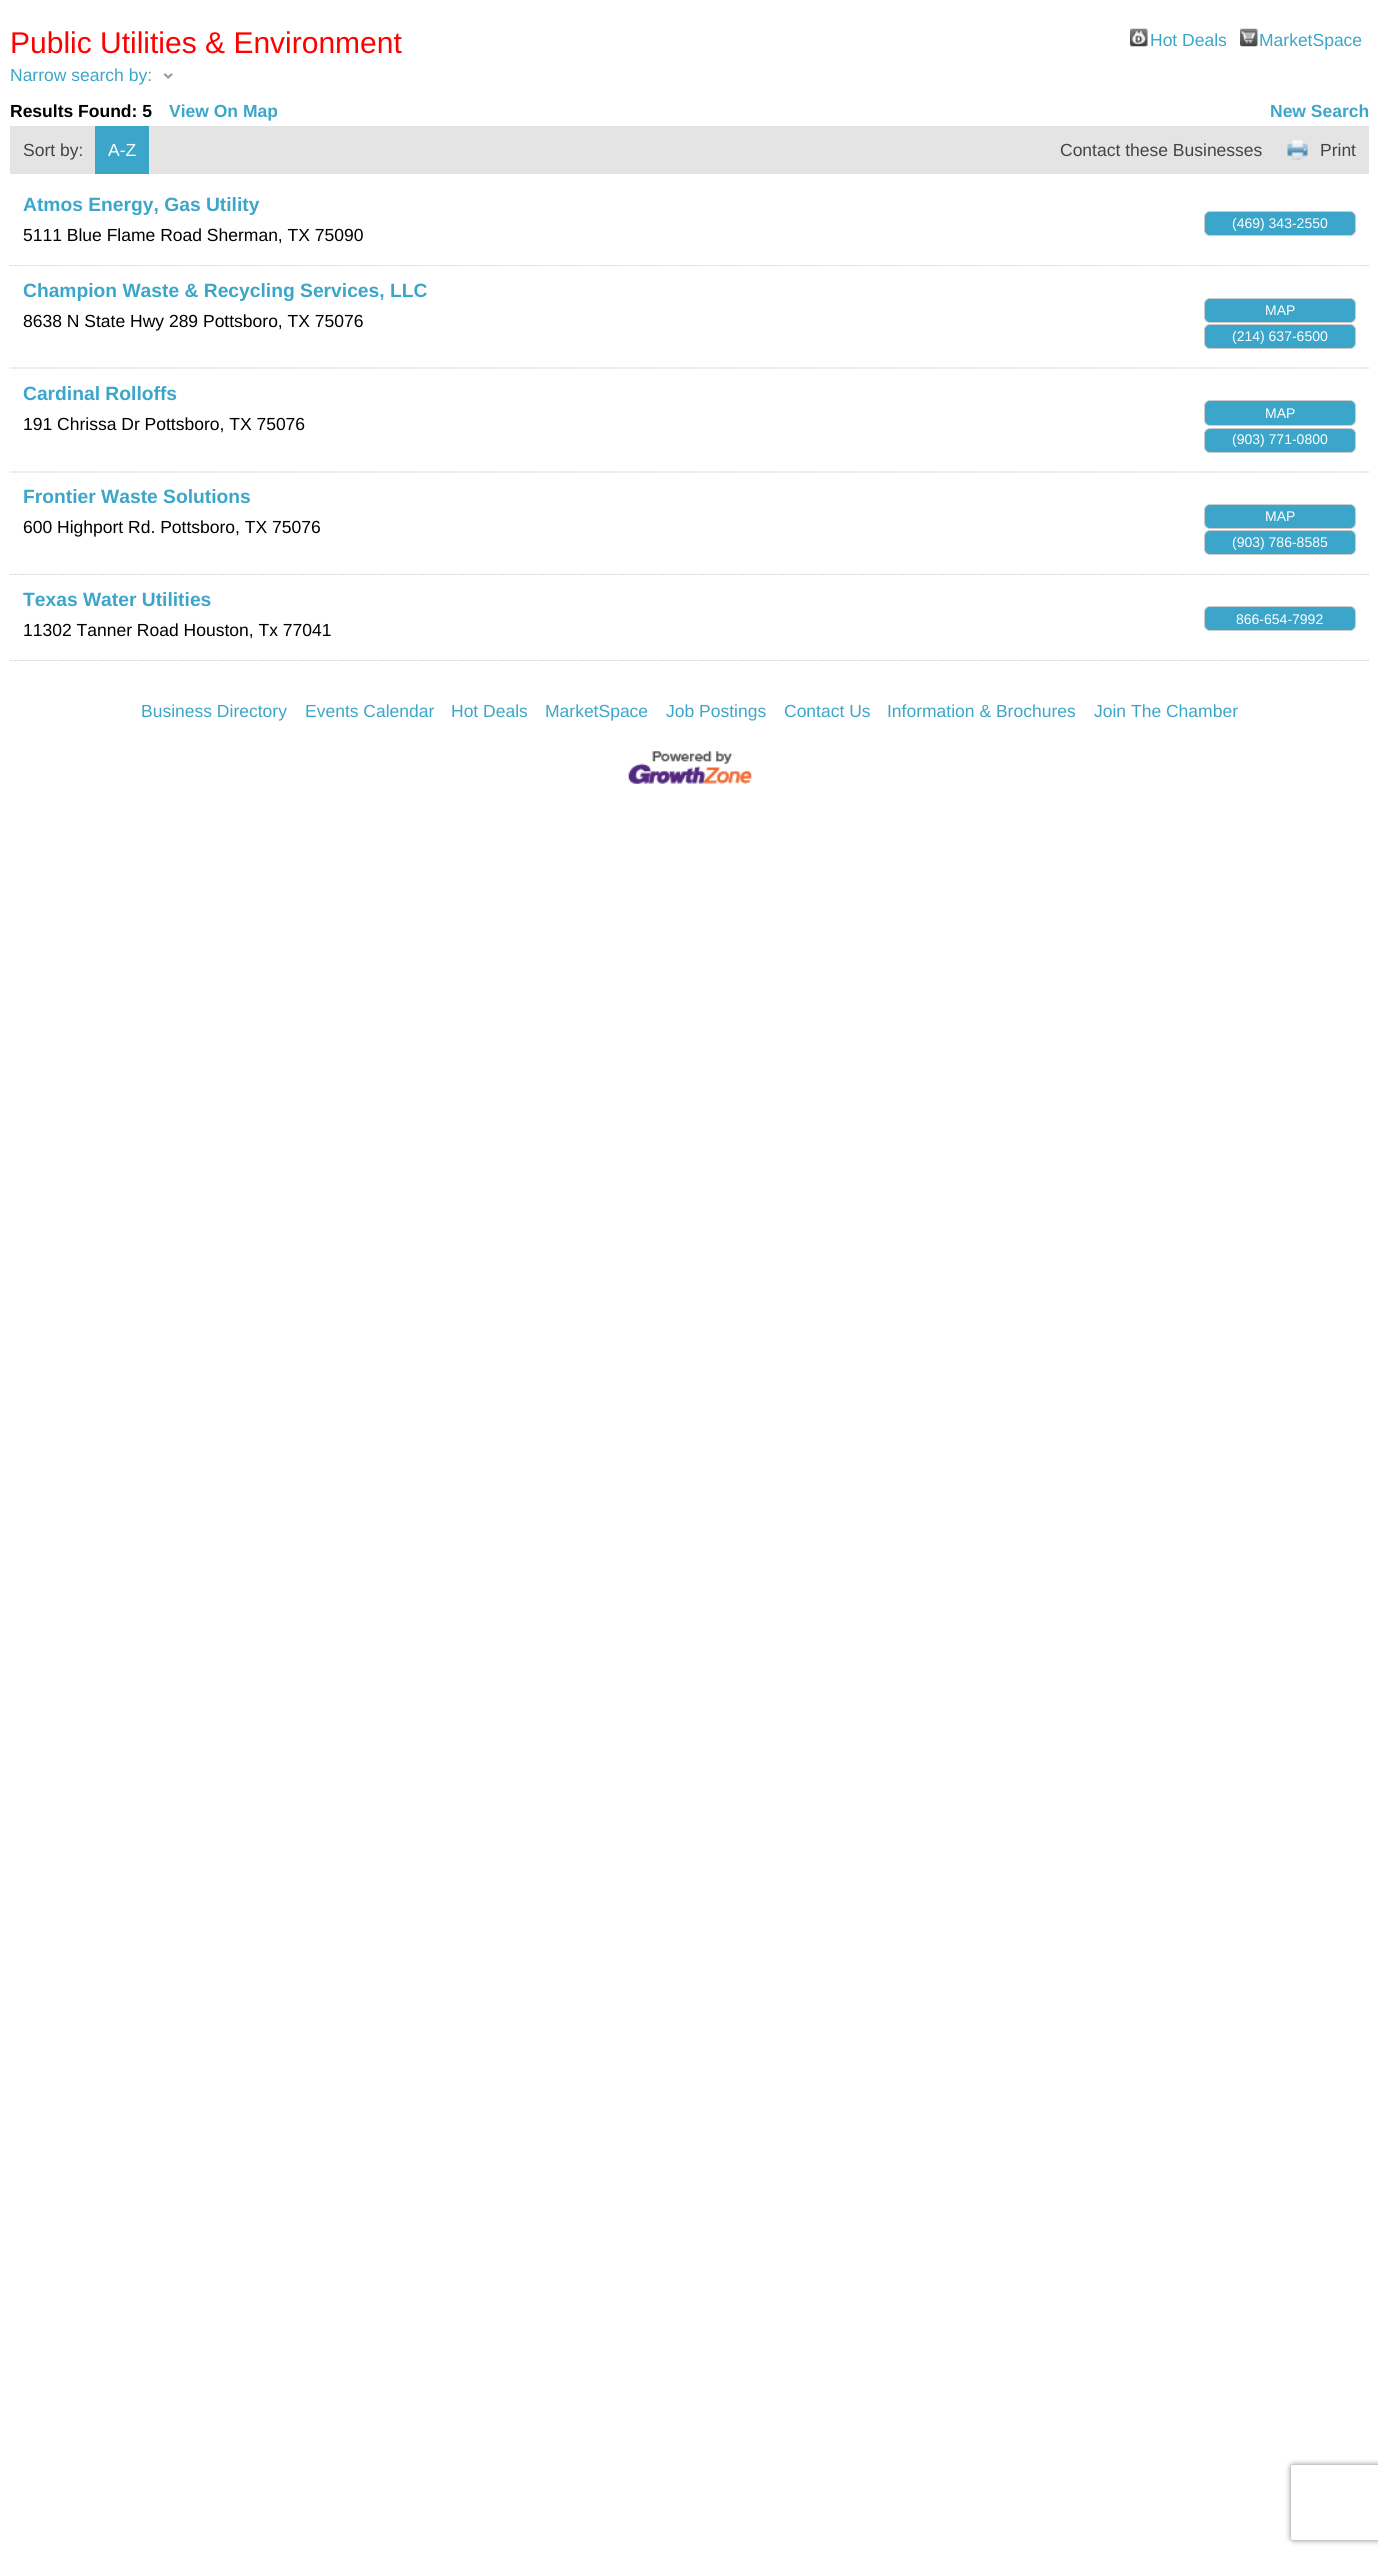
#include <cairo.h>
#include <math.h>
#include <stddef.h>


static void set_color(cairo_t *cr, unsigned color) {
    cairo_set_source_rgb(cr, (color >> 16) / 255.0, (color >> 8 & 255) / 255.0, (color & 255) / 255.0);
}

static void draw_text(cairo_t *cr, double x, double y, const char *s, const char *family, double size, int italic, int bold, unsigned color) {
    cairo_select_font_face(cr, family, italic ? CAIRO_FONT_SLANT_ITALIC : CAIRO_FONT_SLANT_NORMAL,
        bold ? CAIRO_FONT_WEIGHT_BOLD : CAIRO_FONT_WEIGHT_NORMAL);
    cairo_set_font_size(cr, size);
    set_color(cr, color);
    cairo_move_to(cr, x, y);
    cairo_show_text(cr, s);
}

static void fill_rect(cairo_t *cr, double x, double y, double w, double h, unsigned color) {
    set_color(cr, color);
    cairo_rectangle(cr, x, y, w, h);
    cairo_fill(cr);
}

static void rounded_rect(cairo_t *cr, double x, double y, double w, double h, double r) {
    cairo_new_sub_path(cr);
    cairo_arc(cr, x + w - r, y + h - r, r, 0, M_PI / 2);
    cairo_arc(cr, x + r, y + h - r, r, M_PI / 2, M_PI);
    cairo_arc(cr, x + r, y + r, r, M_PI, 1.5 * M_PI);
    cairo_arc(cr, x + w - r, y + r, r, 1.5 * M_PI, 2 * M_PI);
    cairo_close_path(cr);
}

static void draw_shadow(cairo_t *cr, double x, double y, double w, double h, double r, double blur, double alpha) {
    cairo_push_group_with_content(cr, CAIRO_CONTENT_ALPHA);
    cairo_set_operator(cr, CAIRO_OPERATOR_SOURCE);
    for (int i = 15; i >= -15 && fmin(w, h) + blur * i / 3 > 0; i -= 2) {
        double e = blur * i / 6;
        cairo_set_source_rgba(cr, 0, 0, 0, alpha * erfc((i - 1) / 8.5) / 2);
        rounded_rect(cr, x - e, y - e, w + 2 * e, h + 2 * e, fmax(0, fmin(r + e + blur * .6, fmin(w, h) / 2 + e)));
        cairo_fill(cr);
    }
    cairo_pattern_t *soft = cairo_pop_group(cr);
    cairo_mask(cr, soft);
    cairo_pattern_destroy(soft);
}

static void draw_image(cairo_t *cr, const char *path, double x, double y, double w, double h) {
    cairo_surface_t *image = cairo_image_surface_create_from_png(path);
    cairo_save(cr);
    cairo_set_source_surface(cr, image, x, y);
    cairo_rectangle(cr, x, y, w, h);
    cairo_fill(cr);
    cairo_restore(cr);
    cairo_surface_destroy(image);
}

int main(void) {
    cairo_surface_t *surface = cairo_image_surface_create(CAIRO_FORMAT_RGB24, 1378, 2557);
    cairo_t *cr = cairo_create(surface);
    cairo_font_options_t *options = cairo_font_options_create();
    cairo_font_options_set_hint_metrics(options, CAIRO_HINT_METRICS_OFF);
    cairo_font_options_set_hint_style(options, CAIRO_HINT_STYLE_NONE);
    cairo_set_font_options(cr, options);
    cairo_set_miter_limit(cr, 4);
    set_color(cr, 0xFFFFFF);
    cairo_paint(cr);
    draw_text(cr, 10, 53, "Public Utilities & Environment", "Liberation Sans", 30, 0, 0, 0xFF0000);
    draw_image(cr, "assets/img1.png", 1130, 28, 18, 19);
    draw_text(cr, 1150, 46, "Hot Deals", "Liberation Sans", 17.5, 0, 0, 0x3BA6C9);
    draw_image(cr, "assets/img2.png", 1240, 28, 18, 19);
    draw_text(cr, 1259, 46, "MarketSpace", "Liberation Sans", 17.5, 0, 0, 0x3BA6C9);
    draw_text(cr, 10, 81, "Narrow search by:", "Liberation Sans", 17.5, 0, 0, 0x3BA6C9);
    draw_image(cr, "assets/img3.png", 163, 73, 10, 6);
    draw_text(cr, 10, 117, "Results Found: 5", "Liberation Sans", 17.5, 0, 1, 0x000000);
    draw_text(cr, 169, 117, "View On Map", "Liberation Sans", 17.5, 0, 1, 0x3BA6C9);
    draw_text(cr, 1270, 117, "New Search", "Liberation Sans", 17.5, 0, 1, 0x3BA6C9);
    fill_rect(cr, 10, 126, 1359, 48, 0xE4E4E4);
    draw_text(cr, 23, 156, "Sort by:", "Liberation Sans", 17.5, 0, 0, 0x444444);
    fill_rect(cr, 95, 126, 54, 48, 0x3BA6C9);
    draw_text(cr, 108, 156, "A-Z", "Liberation Sans", 17.5, 0, 0, 0xFFFFFF);
    draw_text(cr, 1060, 156, "Contact these Businesses", "Liberation Sans", 17.5, 0, 0, 0x444444);
    draw_image(cr, "assets/img4.png", 1287, 140, 21, 20);
    draw_text(cr, 1320, 156, "Print", "Liberation Sans", 17.5, 0, 0, 0x444444);
    cairo_new_path(cr);
    cairo_move_to(cr, 10, 265.5);
    cairo_line_to(cr, 1369, 265.5);
    set_color(cr, 0xCCCCCC);
    cairo_set_line_width(cr, 1.2);
    cairo_set_dash(cr, (double[]){1.25, 1.25}, 2, 0);
    cairo_stroke(cr);
    fill_rect(cr, 10, 264, 1359, 1, 0xFFFFFF);
    draw_text(cr, 23, 211, "Atmos Energy, Gas Utility", "Liberation Sans", 19.25, 0, 1, 0x3BA6C9);
    draw_text(cr, 23, 241, "5111 Blue Flame Road Sherman, TX 75090", "Liberation Sans", 17.5, 0, 0, 0x000000);
    set_color(cr, 0x3BA6C9);
    rounded_rect(cr, 1204.5, 211.5, 151, 24, 5.5);
    cairo_fill_preserve(cr);
    set_color(cr, 0xCCCCCC);
    cairo_set_line_width(cr, 1);
    cairo_set_dash(cr, NULL, 0, 0);
    cairo_stroke(cr);
    draw_text(cr, 1232, 228, "(469) 343-2550", "Liberation Sans", 14, 0, 0, 0xFFFFFF);
    fill_rect(cr, 10, 266, 1359, 1, 0xFFFFFF);
    cairo_new_path(cr);
    cairo_move_to(cr, 10, 368);
    cairo_line_to(cr, 1369, 368);
    set_color(cr, 0xCCCCCC);
    cairo_set_line_width(cr, 1.2);
    cairo_set_dash(cr, (double[]){1.25, 1.25}, 2, 0);
    cairo_stroke(cr);
    draw_text(cr, 23, 297, "Champion Waste & Recycling Services, LLC", "Liberation Sans", 19.25, 0, 1, 0x3BA6C9);
    draw_text(cr, 23, 327, "8638 N State Hwy 289 Pottsboro, TX 75076", "Liberation Sans", 17.5, 0, 0, 0x000000);
    set_color(cr, 0x3BA6C9);
    rounded_rect(cr, 1204.5, 298.5, 151, 24, 5.5);
    cairo_fill_preserve(cr);
    set_color(cr, 0xCCCCCC);
    cairo_set_line_width(cr, 1);
    cairo_set_dash(cr, NULL, 0, 0);
    cairo_stroke(cr);
    draw_text(cr, 1265, 315, "MAP", "Liberation Sans", 14, 0, 0, 0xFFFFFF);
    set_color(cr, 0x3BA6C9);
    rounded_rect(cr, 1204.5, 324.5, 151, 24, 5.5);
    cairo_fill_preserve(cr);
    set_color(cr, 0xCCCCCC);
    cairo_stroke(cr);
    draw_text(cr, 1232, 341, "(214) 637-6500", "Liberation Sans", 14, 0, 0, 0xFFFFFF);
    cairo_new_path(cr);
    cairo_move_to(cr, 10, 472);
    cairo_line_to(cr, 1369, 472);
    set_color(cr, 0xCCCCCC);
    cairo_set_line_width(cr, 1.2);
    cairo_set_dash(cr, (double[]){1.25, 1.25}, 2, 0);
    cairo_stroke(cr);
    draw_text(cr, 23, 400, "Cardinal Rolloffs", "Liberation Sans", 19.25, 0, 1, 0x3BA6C9);
    draw_text(cr, 23, 430, "191 Chrissa Dr Pottsboro, TX 75076", "Liberation Sans", 17.5, 0, 0, 0x000000);
    set_color(cr, 0x3BA6C9);
    rounded_rect(cr, 1204.5, 400.5, 151, 25, 5.5);
    cairo_fill_preserve(cr);
    set_color(cr, 0xCCCCCC);
    cairo_set_line_width(cr, 1);
    cairo_set_dash(cr, NULL, 0, 0);
    cairo_stroke(cr);
    draw_text(cr, 1265, 418, "MAP", "Liberation Sans", 14, 0, 0, 0xFFFFFF);
    set_color(cr, 0x3BA6C9);
    rounded_rect(cr, 1204.5, 428.5, 151, 24, 5.5);
    cairo_fill_preserve(cr);
    set_color(cr, 0xCCCCCC);
    cairo_stroke(cr);
    draw_text(cr, 1232, 444, "(903) 771-0800", "Liberation Sans", 14, 0, 0, 0xFFFFFF);
    cairo_new_path(cr);
    cairo_move_to(cr, 10, 574.5);
    cairo_line_to(cr, 1369, 574.5);
    set_color(cr, 0xCCCCCC);
    cairo_set_line_width(cr, 1.2);
    cairo_set_dash(cr, (double[]){1.25, 1.25}, 2, 0);
    cairo_stroke(cr);
    draw_text(cr, 23, 503, "Frontier Waste Solutions", "Liberation Sans", 19.25, 0, 1, 0x3BA6C9);
    draw_text(cr, 23, 533, "600 Highport Rd. Pottsboro, TX 75076", "Liberation Sans", 17.5, 0, 0, 0x000000);
    set_color(cr, 0x3BA6C9);
    rounded_rect(cr, 1204.5, 504.5, 151, 24, 5.5);
    cairo_fill_preserve(cr);
    set_color(cr, 0xCCCCCC);
    cairo_set_line_width(cr, 1);
    cairo_set_dash(cr, NULL, 0, 0);
    cairo_stroke(cr);
    draw_text(cr, 1265, 521, "MAP", "Liberation Sans", 14, 0, 0, 0xFFFFFF);
    set_color(cr, 0x3BA6C9);
    rounded_rect(cr, 1204.5, 530.5, 151, 24, 5.5);
    cairo_fill_preserve(cr);
    set_color(cr, 0xCCCCCC);
    cairo_stroke(cr);
    draw_text(cr, 1232, 547, "(903) 786-8585", "Liberation Sans", 14, 0, 0, 0xFFFFFF);
    cairo_new_path(cr);
    cairo_move_to(cr, 10, 660.5);
    cairo_line_to(cr, 1369, 660.5);
    set_color(cr, 0xCCCCCC);
    cairo_set_line_width(cr, 1.2);
    cairo_set_dash(cr, (double[]){1.25, 1.25}, 2, 0);
    cairo_stroke(cr);
    fill_rect(cr, 10, 575, 1359, 85, 0xFFFFFF);
    draw_text(cr, 23, 606, "Texas Water Utilities", "Liberation Sans", 19.25, 0, 1, 0x3BA6C9);
    draw_text(cr, 23, 636, "11302 Tanner Road Houston, Tx 77041", "Liberation Sans", 17.5, 0, 0, 0x000000);
    set_color(cr, 0x3BA6C9);
    rounded_rect(cr, 1204.5, 606.5, 151, 24, 5.5);
    cairo_fill_preserve(cr);
    set_color(cr, 0xCCCCCC);
    cairo_set_line_width(cr, 1);
    cairo_set_dash(cr, NULL, 0, 0);
    cairo_stroke(cr);
    draw_text(cr, 1236, 624, "866-654-7992", "Liberation Sans", 14, 0, 0, 0xFFFFFF);
    draw_text(cr, 141, 717, "Business Directory", "Liberation Sans", 17.5, 0, 0, 0x3BA6C9);
    draw_text(cr, 305, 717, "Events Calendar", "Liberation Sans", 17.5, 0, 0, 0x3BA6C9);
    draw_text(cr, 451, 717, "Hot Deals", "Liberation Sans", 17.5, 0, 0, 0x3BA6C9);
    draw_text(cr, 545, 717, "MarketSpace", "Liberation Sans", 17.5, 0, 0, 0x3BA6C9);
    draw_text(cr, 666, 717, "Job Postings", "Liberation Sans", 17.5, 0, 0, 0x3BA6C9);
    draw_text(cr, 784, 717, "Contact Us", "Liberation Sans", 17.5, 0, 0, 0x3BA6C9);
    draw_text(cr, 887, 717, "Information & Brochures", "Liberation Sans", 17.5, 0, 0, 0x3BA6C9);
    draw_text(cr, 1094, 717, "Join The Chamber", "Liberation Sans", 17.5, 0, 0, 0x3BA6C9);
    draw_image(cr, "assets/img5.png", 628, 751, 124, 33);
    cairo_save(cr);
    cairo_set_fill_rule(cr, CAIRO_FILL_RULE_EVEN_ODD);
    cairo_new_path(cr);
    cairo_move_to(cr, 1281, 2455);
    cairo_line_to(cr, 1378, 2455);
    cairo_line_to(cr, 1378, 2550);
    cairo_line_to(cr, 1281, 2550);
    cairo_close_path(cr);
    cairo_move_to(cr, 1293.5, 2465);
    cairo_line_to(cr, 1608.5, 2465);
    cairo_curve_to(cr, 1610, 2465, 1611, 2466, 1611, 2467.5);
    cairo_line_to(cr, 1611, 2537.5);
    cairo_curve_to(cr, 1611, 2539, 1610, 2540, 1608.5, 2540);
    cairo_line_to(cr, 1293.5, 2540);
    cairo_curve_to(cr, 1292, 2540, 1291, 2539, 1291, 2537.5);
    cairo_line_to(cr, 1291, 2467.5);
    cairo_curve_to(cr, 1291, 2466, 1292, 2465, 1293.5, 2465);
    cairo_close_path(cr);
    cairo_clip(cr);
    set_color(cr, 0x808080);
    draw_shadow(cr, 1291, 2465, 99, 75, 2.5, 3, 1);
    cairo_restore(cr);
    cairo_surface_write_to_png(surface, "output.png");
    cairo_font_options_destroy(options);
    cairo_destroy(cr);
    cairo_surface_destroy(surface);
    return 0;
}
